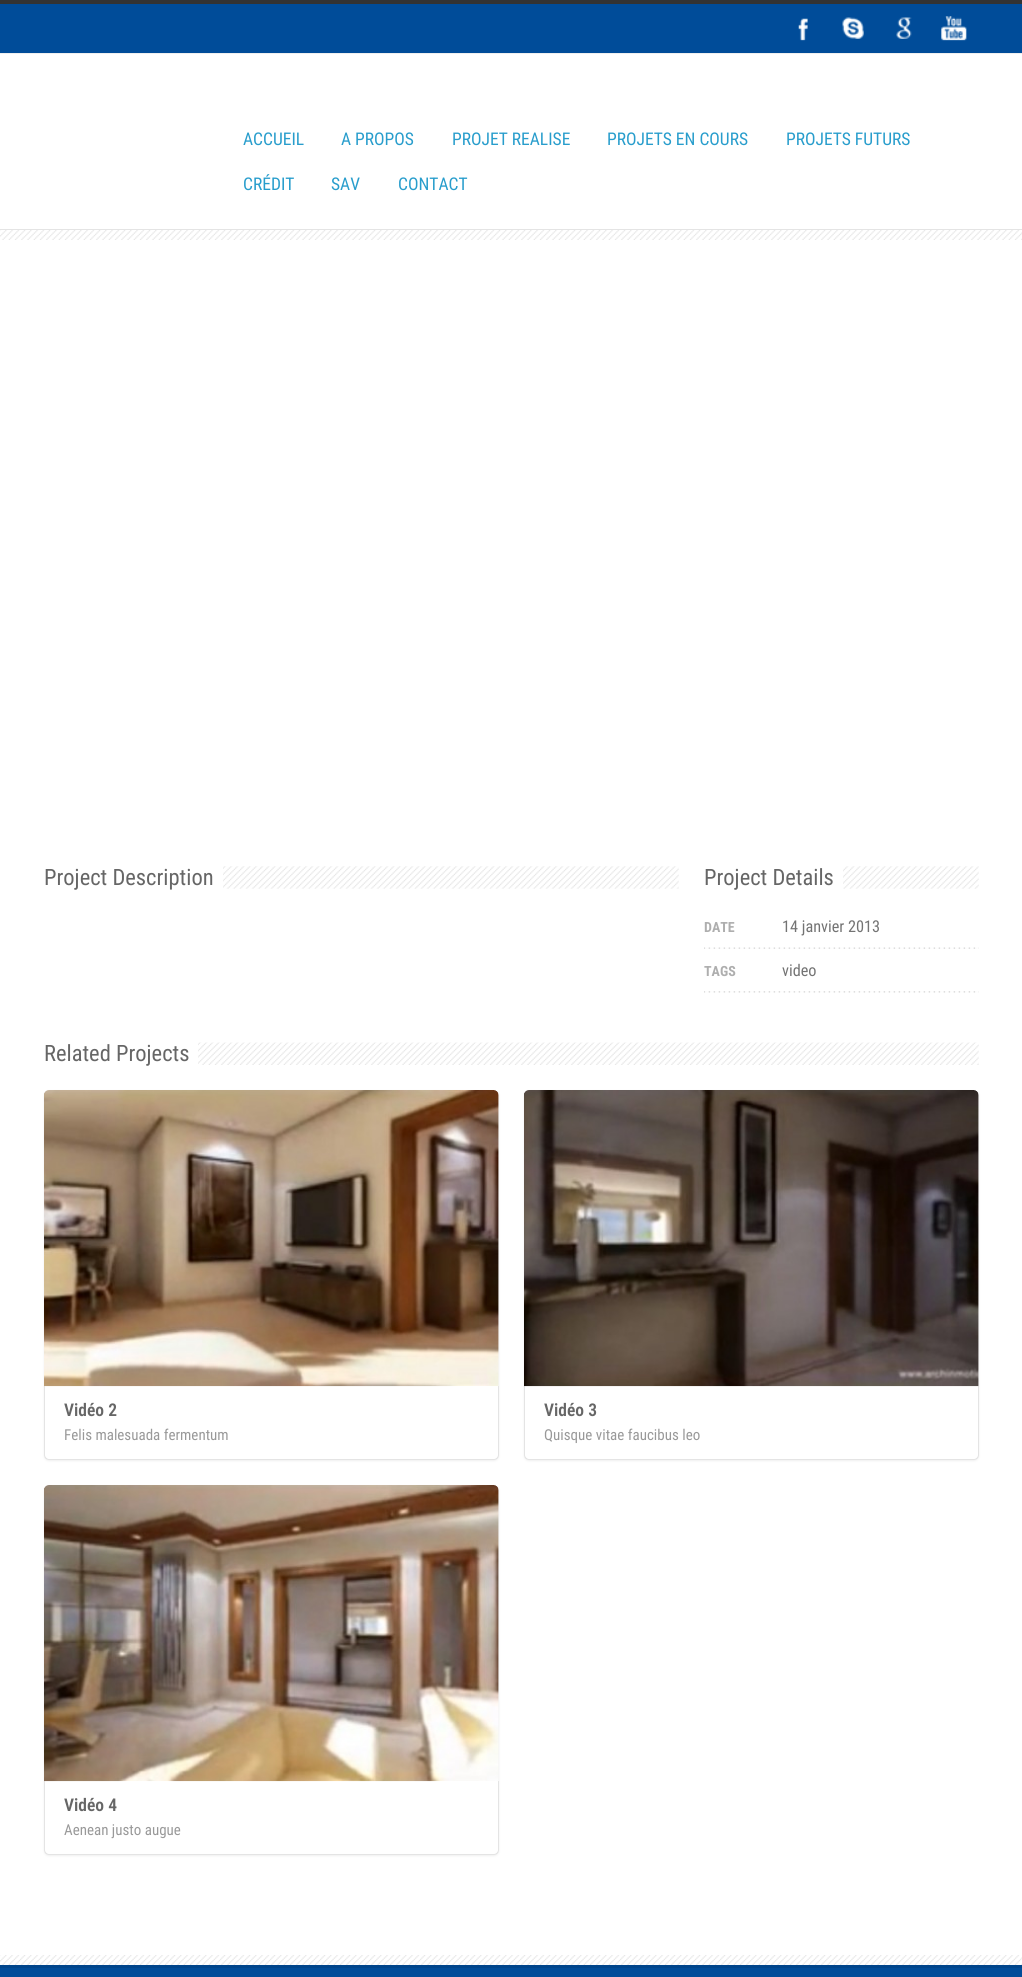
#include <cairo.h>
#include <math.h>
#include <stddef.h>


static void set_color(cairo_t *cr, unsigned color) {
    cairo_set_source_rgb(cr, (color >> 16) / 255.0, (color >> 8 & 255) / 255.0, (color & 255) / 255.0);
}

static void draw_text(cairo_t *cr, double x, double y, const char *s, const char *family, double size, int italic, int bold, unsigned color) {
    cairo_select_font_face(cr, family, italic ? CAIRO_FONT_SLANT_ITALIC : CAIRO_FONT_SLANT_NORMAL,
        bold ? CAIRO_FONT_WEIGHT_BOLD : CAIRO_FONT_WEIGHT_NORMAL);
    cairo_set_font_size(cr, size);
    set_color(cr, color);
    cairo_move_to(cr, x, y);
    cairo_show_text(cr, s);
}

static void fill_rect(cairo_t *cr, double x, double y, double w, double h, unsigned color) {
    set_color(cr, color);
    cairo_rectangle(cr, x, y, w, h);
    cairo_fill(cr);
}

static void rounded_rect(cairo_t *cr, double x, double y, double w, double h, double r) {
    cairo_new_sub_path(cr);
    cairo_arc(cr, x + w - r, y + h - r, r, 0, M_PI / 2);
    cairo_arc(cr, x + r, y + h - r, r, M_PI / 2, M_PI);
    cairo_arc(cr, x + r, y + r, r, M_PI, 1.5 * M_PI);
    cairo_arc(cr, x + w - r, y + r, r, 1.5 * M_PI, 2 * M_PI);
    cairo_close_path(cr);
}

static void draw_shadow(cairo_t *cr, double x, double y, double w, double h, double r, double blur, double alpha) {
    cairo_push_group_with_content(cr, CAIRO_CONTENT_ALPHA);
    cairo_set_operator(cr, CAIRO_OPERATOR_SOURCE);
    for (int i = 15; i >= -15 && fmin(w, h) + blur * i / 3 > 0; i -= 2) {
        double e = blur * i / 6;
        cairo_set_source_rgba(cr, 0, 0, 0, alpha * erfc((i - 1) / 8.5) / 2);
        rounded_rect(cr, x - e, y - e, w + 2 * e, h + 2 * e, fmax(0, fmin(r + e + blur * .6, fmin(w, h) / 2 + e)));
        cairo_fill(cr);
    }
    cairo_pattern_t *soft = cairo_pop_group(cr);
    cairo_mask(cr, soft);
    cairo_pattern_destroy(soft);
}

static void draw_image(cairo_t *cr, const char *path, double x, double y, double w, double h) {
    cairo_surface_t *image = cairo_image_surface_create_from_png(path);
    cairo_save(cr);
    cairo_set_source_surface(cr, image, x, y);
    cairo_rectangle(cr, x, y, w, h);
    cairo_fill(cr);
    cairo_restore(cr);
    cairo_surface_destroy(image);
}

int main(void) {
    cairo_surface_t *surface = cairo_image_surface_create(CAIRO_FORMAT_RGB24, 1022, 1977);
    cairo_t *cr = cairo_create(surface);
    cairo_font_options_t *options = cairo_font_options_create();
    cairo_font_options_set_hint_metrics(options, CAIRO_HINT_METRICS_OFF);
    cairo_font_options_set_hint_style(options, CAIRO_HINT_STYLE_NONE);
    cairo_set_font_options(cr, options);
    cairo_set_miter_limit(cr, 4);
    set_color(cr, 0x333333);
    cairo_paint(cr);
    fill_rect(cr, 0, 54, 1022, 1911, 0xFFFFFF);
    fill_rect(cr, 0, 4, 1022, 49, 0x004C99);
    fill_rect(cr, 0, 53, 1022, 1, 0xEFEFEF);
    draw_image(cr, "assets/img1.png", 798, 18, 10, 23);
    draw_image(cr, "assets/img2.png", 842, 17, 22, 22);
    draw_image(cr, "assets/img3.png", 896, 17, 16, 22);
    draw_image(cr, "assets/img4.png", 941, 16, 26, 25);
    draw_text(cr, 243, 145, "ACCUEIL", "Roboto Condensed", 17.5, 0, 0, 0x289DCC);
    draw_text(cr, 341, 145, "A PROPOS", "Roboto Condensed", 17.5, 0, 0, 0x289DCC);
    draw_text(cr, 452, 145, "PROJET REALISE", "Roboto Condensed", 17.5, 0, 0, 0x289DCC);
    draw_text(cr, 607, 145, "PROJETS EN COURS", "Roboto Condensed", 17.5, 0, 0, 0x289DCC);
    draw_text(cr, 786, 145, "PROJETS FUTURS", "Roboto Condensed", 17.5, 0, 0, 0x289DCC);
    draw_text(cr, 243, 190, "CRÉDIT", "Roboto Condensed", 17.5, 0, 0, 0x289DCC);
    draw_text(cr, 331, 190, "SAV", "Roboto Condensed", 17.5, 0, 0, 0x289DCC);
    draw_text(cr, 398, 190, "CONTACT", "Roboto Condensed", 17.5, 0, 0, 0x289DCC);
    fill_rect(cr, 0, 229, 1022, 1, 0xE4E4E4);
    draw_image(cr, "assets/img5.png", 0, 230, 1022, 10);
    draw_image(cr, "assets/img6.png", 223, 866, 456, 23);
    draw_text(cr, 44, 885, "Project Description", "Roboto Condensed", 22.5, 0, 0, 0x666666);
    draw_image(cr, "assets/img7.png", 843, 866, 136, 23);
    draw_text(cr, 704, 885, "Project Details", "Roboto Condensed", 22.5, 0, 0, 0x666666);
    draw_image(cr, "assets/img8.png", 704, 947, 275, 2);
    draw_text(cr, 704, 932, "DATE", "Roboto Condensed", 14, 0, 1, 0xAEAEAE);
    draw_text(cr, 782, 932, "14 janvier 2013", "Roboto Condensed", 16.25, 0, 0, 0x737373);
    draw_image(cr, "assets/img9.png", 704, 991, 275, 2);
    draw_text(cr, 704, 976, "TAGS", "Roboto Condensed", 14, 0, 1, 0xAEAEAE);
    draw_text(cr, 782, 976, "video", "Roboto Condensed", 16.25, 0, 0, 0x737373);
    draw_image(cr, "assets/img10.png", 198, 1042, 781, 23);
    draw_text(cr, 44, 1061, "Related Projects", "Roboto Condensed", 22.5, 0, 0, 0x666666);
    set_color(cr, 0xB4B4B4);
    draw_shadow(cr, 44, 1091, 455, 370, 5, 1, 0.2);
    set_color(cr, 0xFFFFFF);
    cairo_new_path(cr);
    cairo_move_to(cr, 44, 1386);
    cairo_line_to(cr, 499, 1386);
    cairo_line_to(cr, 499, 1455);
    cairo_curve_to(cr, 499, 1458, 497, 1460, 494, 1460);
    cairo_line_to(cr, 49, 1460);
    cairo_curve_to(cr, 46, 1460, 44, 1458, 44, 1455);
    cairo_close_path(cr);
    cairo_fill(cr);
    set_color(cr, 0xE4E4E4);
    cairo_new_path(cr);
    cairo_move_to(cr, 45, 1386);
    cairo_line_to(cr, 44, 1386);
    cairo_line_to(cr, 44, 1455);
    cairo_curve_to(cr, 44, 1458, 46, 1460, 49, 1460);
    cairo_line_to(cr, 494, 1460);
    cairo_curve_to(cr, 497, 1460, 499, 1458, 499, 1455);
    cairo_line_to(cr, 499, 1386);
    cairo_line_to(cr, 498, 1386);
    cairo_line_to(cr, 498, 1455);
    cairo_curve_to(cr, 498, 1457, 496, 1459, 494, 1459);
    cairo_line_to(cr, 49, 1459);
    cairo_curve_to(cr, 47, 1459, 45, 1457, 45, 1455);
    cairo_close_path(cr);
    cairo_fill(cr);
    draw_image(cr, "assets/img11.png", 44, 1090, 455, 297);
    draw_text(cr, 64, 1416, "Vidéo 2", "Roboto Condensed SemiBold", 17.5, 0, 0, 0x666666);
    draw_text(cr, 64, 1440, "Felis malesuada fermentum", "Roboto Condensed", 15, 0, 0, 0x999999);
    set_color(cr, 0xB4B4B4);
    draw_shadow(cr, 524, 1091, 455, 370, 5, 1, 0.2);
    set_color(cr, 0xFFFFFF);
    cairo_new_path(cr);
    cairo_move_to(cr, 524, 1386);
    cairo_line_to(cr, 979, 1386);
    cairo_line_to(cr, 979, 1455);
    cairo_curve_to(cr, 979, 1458, 977, 1460, 974, 1460);
    cairo_line_to(cr, 529, 1460);
    cairo_curve_to(cr, 526, 1460, 524, 1458, 524, 1455);
    cairo_close_path(cr);
    cairo_fill(cr);
    set_color(cr, 0xE4E4E4);
    cairo_new_path(cr);
    cairo_move_to(cr, 525, 1386);
    cairo_line_to(cr, 524, 1386);
    cairo_line_to(cr, 524, 1455);
    cairo_curve_to(cr, 524, 1458, 526, 1460, 529, 1460);
    cairo_line_to(cr, 974, 1460);
    cairo_curve_to(cr, 977, 1460, 979, 1458, 979, 1455);
    cairo_line_to(cr, 979, 1386);
    cairo_line_to(cr, 978, 1386);
    cairo_line_to(cr, 978, 1455);
    cairo_curve_to(cr, 978, 1457, 976, 1459, 974, 1459);
    cairo_line_to(cr, 529, 1459);
    cairo_curve_to(cr, 527, 1459, 525, 1457, 525, 1455);
    cairo_close_path(cr);
    cairo_fill(cr);
    draw_image(cr, "assets/img12.png", 524, 1090, 455, 297);
    draw_text(cr, 544, 1416, "Vidéo 3", "Roboto Condensed SemiBold", 17.5, 0, 0, 0x666666);
    draw_text(cr, 544, 1440, "Quisque vitae faucibus leo", "Roboto Condensed", 15, 0, 0, 0x999999);
    set_color(cr, 0xB4B4B4);
    draw_shadow(cr, 44, 1486, 455, 370, 5, 1, 0.2);
    set_color(cr, 0xFFFFFF);
    cairo_new_path(cr);
    cairo_move_to(cr, 44, 1781);
    cairo_line_to(cr, 499, 1781);
    cairo_line_to(cr, 499, 1850);
    cairo_curve_to(cr, 499, 1853, 497, 1855, 494, 1855);
    cairo_line_to(cr, 49, 1855);
    cairo_curve_to(cr, 46, 1855, 44, 1853, 44, 1850);
    cairo_close_path(cr);
    cairo_fill(cr);
    set_color(cr, 0xE4E4E4);
    cairo_new_path(cr);
    cairo_move_to(cr, 45, 1781);
    cairo_line_to(cr, 44, 1781);
    cairo_line_to(cr, 44, 1850);
    cairo_curve_to(cr, 44, 1853, 46, 1855, 49, 1855);
    cairo_line_to(cr, 494, 1855);
    cairo_curve_to(cr, 497, 1855, 499, 1853, 499, 1850);
    cairo_line_to(cr, 499, 1781);
    cairo_line_to(cr, 498, 1781);
    cairo_line_to(cr, 498, 1850);
    cairo_curve_to(cr, 498, 1852, 496, 1854, 494, 1854);
    cairo_line_to(cr, 49, 1854);
    cairo_curve_to(cr, 47, 1854, 45, 1852, 45, 1850);
    cairo_close_path(cr);
    cairo_fill(cr);
    draw_image(cr, "assets/img13.png", 44, 1485, 455, 297);
    draw_text(cr, 64, 1811, "Vidéo 4", "Roboto Condensed SemiBold", 17.5, 0, 0, 0x666666);
    draw_text(cr, 64, 1835, "Aenean justo augue", "Roboto Condensed", 15, 0, 0, 0x999999);
    draw_image(cr, "assets/img5.png", 0, 1955, 1022, 10);
    fill_rect(cr, 0, 1968, 1022, 9, 0x004C99);
    fill_rect(cr, 0, 1965, 1022, 3, 0x00458B);
    cairo_surface_write_to_png(surface, "output.png");
    cairo_font_options_destroy(options);
    cairo_destroy(cr);
    cairo_surface_destroy(surface);
    return 0;
}
